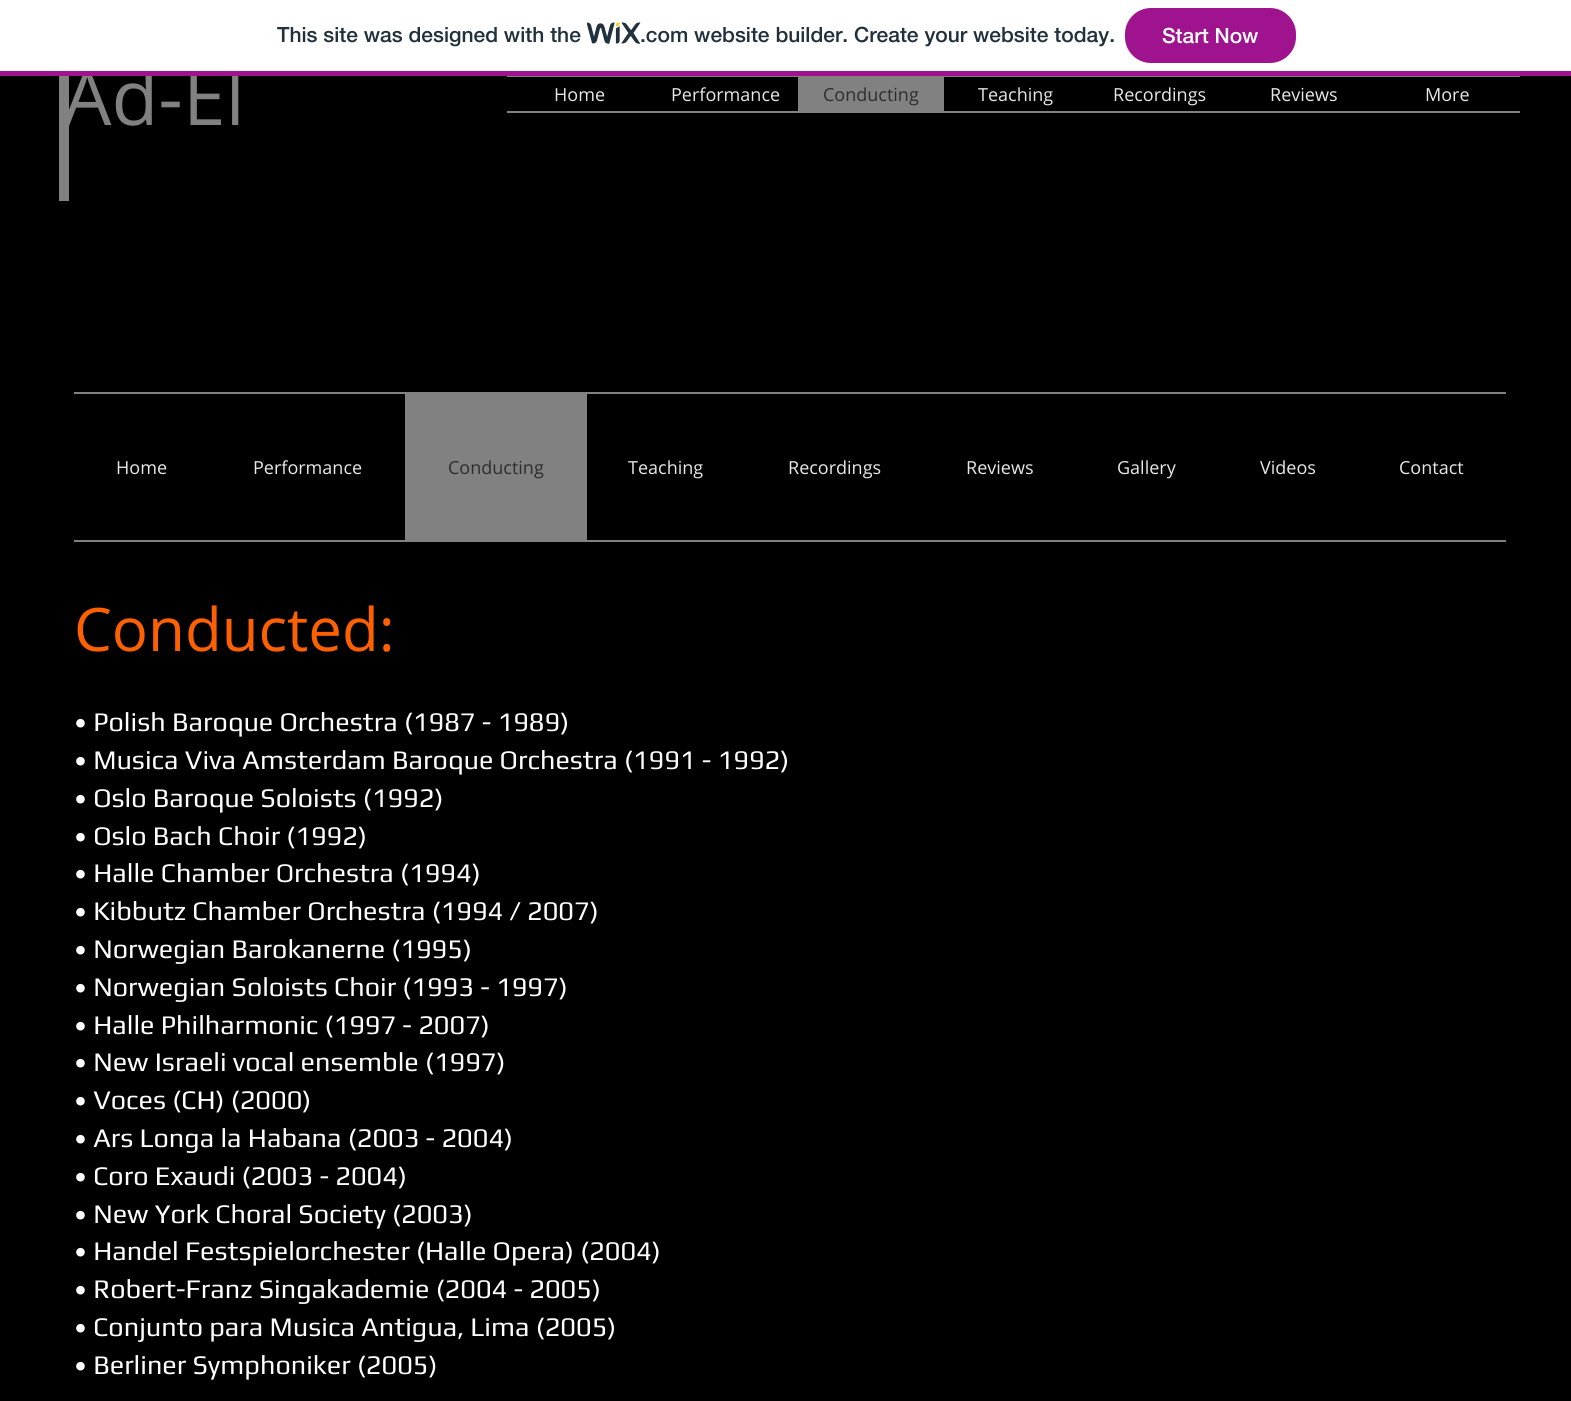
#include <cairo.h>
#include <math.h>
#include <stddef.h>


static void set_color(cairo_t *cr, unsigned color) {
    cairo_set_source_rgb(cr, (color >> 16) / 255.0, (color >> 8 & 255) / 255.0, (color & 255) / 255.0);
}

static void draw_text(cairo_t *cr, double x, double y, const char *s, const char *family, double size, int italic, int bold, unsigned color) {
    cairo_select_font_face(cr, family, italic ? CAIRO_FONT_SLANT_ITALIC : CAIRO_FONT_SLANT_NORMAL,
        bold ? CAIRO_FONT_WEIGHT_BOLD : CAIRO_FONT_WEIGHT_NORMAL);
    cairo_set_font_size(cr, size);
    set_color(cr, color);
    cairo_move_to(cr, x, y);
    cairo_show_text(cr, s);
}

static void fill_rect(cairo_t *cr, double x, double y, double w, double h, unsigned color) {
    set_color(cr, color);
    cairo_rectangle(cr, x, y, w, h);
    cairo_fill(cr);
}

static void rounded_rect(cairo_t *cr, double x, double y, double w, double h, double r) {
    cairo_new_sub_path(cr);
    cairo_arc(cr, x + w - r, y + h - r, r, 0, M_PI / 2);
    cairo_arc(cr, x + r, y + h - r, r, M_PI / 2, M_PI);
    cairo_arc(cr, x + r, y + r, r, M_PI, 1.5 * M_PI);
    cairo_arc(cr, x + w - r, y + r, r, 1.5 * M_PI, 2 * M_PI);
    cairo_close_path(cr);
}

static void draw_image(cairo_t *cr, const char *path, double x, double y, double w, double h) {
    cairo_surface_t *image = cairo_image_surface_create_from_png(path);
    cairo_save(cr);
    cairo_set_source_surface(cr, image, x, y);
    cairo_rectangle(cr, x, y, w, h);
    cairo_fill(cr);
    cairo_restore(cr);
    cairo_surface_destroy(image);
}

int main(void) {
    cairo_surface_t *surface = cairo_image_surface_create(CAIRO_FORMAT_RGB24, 1571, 1401);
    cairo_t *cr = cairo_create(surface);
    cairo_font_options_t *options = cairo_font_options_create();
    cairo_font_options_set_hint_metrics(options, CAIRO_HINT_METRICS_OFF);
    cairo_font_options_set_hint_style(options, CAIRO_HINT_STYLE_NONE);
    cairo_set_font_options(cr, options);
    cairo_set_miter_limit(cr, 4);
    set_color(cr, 0x000000);
    cairo_paint(cr);
    draw_text(cr, 63, 125, "Ad-El", "Open Sans", 76.5, 0, 0, 0x818181);
    fill_rect(cr, 0, 0, 1571, 71, 0xFFFFFF);
    fill_rect(cr, 0, 71, 1571, 5, 0xA0138E);
    draw_text(cr, 277, 42, "This site was designed with the", "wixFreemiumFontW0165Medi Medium", 21, 0, 0, 0x20303C);
    draw_image(cr, "assets/img1.png", 587, 22, 54, 22);
    draw_text(cr, 640, 42, ".com website builder. Create your website today.", "wixFreemiumFontW0165Medi Medium", 21, 0, 0, 0x20303C);
    set_color(cr, 0xA0138E);
    rounded_rect(cr, 1126, 9, 169, 53, 25);
    cairo_fill_preserve(cr);
    cairo_stroke(cr);
    draw_text(cr, 1162, 43, "Start Now", "wixFreemiumFontW0165Medi Medium", 21, 0, 0, 0xFFFFFF);
    fill_rect(cr, 59, 76, 10, 125, 0x818181);
    fill_rect(cr, 507, 76, 1013, 1, 0x818181);
    fill_rect(cr, 507, 111, 1013, 2, 0x818181);
    draw_text(cr, 554, 101, "Home", "Open Sans", 18, 0, 0, 0xE8E8E8);
    draw_text(cr, 671, 101, "Performance", "Open Sans", 18, 0, 0, 0xE8E8E8);
    fill_rect(cr, 798, 77, 146, 34, 0x818181);
    draw_text(cr, 823, 101, "Conducting", "Open Sans", 18, 0, 0, 0x2D2D2D);
    draw_text(cr, 978, 101, "Teaching", "Open Sans", 18, 0, 0, 0xE8E8E8);
    draw_text(cr, 1113, 101, "Recordings", "Open Sans", 18, 0, 0, 0xE8E8E8);
    draw_text(cr, 1270, 101, "Reviews", "Open Sans", 18, 0, 0, 0xE8E8E8);
    draw_text(cr, 1425, 101, "More", "Open Sans", 18, 0, 0, 0xE8E8E8);
    fill_rect(cr, 74, 392, 1432, 2, 0x818181);
    fill_rect(cr, 74, 540, 1432, 2, 0x818181);
    draw_text(cr, 116, 474, "Home", "Open Sans", 18, 0, 0, 0xE8E8E8);
    draw_text(cr, 253, 474, "Performance", "Open Sans", 18, 0, 0, 0xE8E8E8);
    fill_rect(cr, 405, 394, 182, 146, 0x818181);
    draw_text(cr, 448, 474, "Conducting", "Open Sans", 18, 0, 0, 0x2D2D2D);
    draw_text(cr, 628, 474, "Teaching", "Open Sans", 18, 0, 0, 0xE8E8E8);
    draw_text(cr, 788, 474, "Recordings", "Open Sans", 18, 0, 0, 0xE8E8E8);
    draw_text(cr, 966, 474, "Reviews", "Open Sans", 18, 0, 0, 0xE8E8E8);
    draw_text(cr, 1117, 474, "Gallery", "Open Sans", 18, 0, 0, 0xE8E8E8);
    draw_text(cr, 1260, 474, "Videos", "Open Sans", 18, 0, 0, 0xE8E8E8);
    draw_text(cr, 1399, 474, "Contact", "Open Sans", 18, 0, 0, 0xE8E8E8);
    draw_text(cr, 74, 651, "Conducted:", "Open Sans", 60, 0, 0, 0xFC6000);
    draw_text(cr, 74, 731, "• Polish Baroque Orchestra (1987 - 1989)", "Play", 27, 0, 0, 0xFFFFFF);
    draw_text(cr, 74, 769, "• Musica Viva Amsterdam Baroque Orchestra (1991 - 1992)", "Play", 27, 0, 0, 0xFFFFFF);
    draw_text(cr, 74, 807, "• Oslo Baroque Soloists (1992)", "Play", 27, 0, 0, 0xFFFFFF);
    draw_text(cr, 74, 845, "• Oslo Bach Choir (1992)", "Play", 27, 0, 0, 0xFFFFFF);
    draw_text(cr, 74, 882, "• Halle Chamber Orchestra (1994)", "Play", 27, 0, 0, 0xFFFFFF);
    draw_text(cr, 74, 920, "• Kibbutz Chamber Orchestra (1994 / 2007)", "Play", 27, 0, 0, 0xFFFFFF);
    draw_text(cr, 74, 958, "• Norwegian Barokanerne (1995)", "Play", 27, 0, 0, 0xFFFFFF);
    draw_text(cr, 74, 996, "• Norwegian Soloists Choir (1993 - 1997)", "Play", 27, 0, 0, 0xFFFFFF);
    draw_text(cr, 74, 1034, "• Halle Philharmonic (1997 - 2007)", "Play", 27, 0, 0, 0xFFFFFF);
    draw_text(cr, 74, 1071, "• New Israeli vocal ensemble (1997)", "Play", 27, 0, 0, 0xFFFFFF);
    draw_text(cr, 74, 1109, "• Voces (CH) (2000)", "Play", 27, 0, 0, 0xFFFFFF);
    draw_text(cr, 74, 1147, "• Ars Longa la Habana (2003 - 2004)", "Play", 27, 0, 0, 0xFFFFFF);
    draw_text(cr, 74, 1185, "• Coro Exaudi (2003 - 2004)", "Play", 27, 0, 0, 0xFFFFFF);
    draw_text(cr, 74, 1223, "• New York Choral Society (2003)", "Play", 27, 0, 0, 0xFFFFFF);
    draw_text(cr, 74, 1260, "• Handel Festspielorchester (Halle Opera) (2004)", "Play", 27, 0, 0, 0xFFFFFF);
    draw_text(cr, 74, 1298, "• Robert-Franz Singakademie (2004 - 2005)", "Play", 27, 0, 0, 0xFFFFFF);
    draw_text(cr, 74, 1336, "• Conjunto para Musica Antigua, Lima (2005)", "Play", 27, 0, 0, 0xFFFFFF);
    draw_text(cr, 74, 1374, "• Berliner Symphoniker (2005)", "Play", 27, 0, 0, 0xFFFFFF);
    cairo_surface_write_to_png(surface, "output.png");
    cairo_font_options_destroy(options);
    cairo_destroy(cr);
    cairo_surface_destroy(surface);
    return 0;
}
